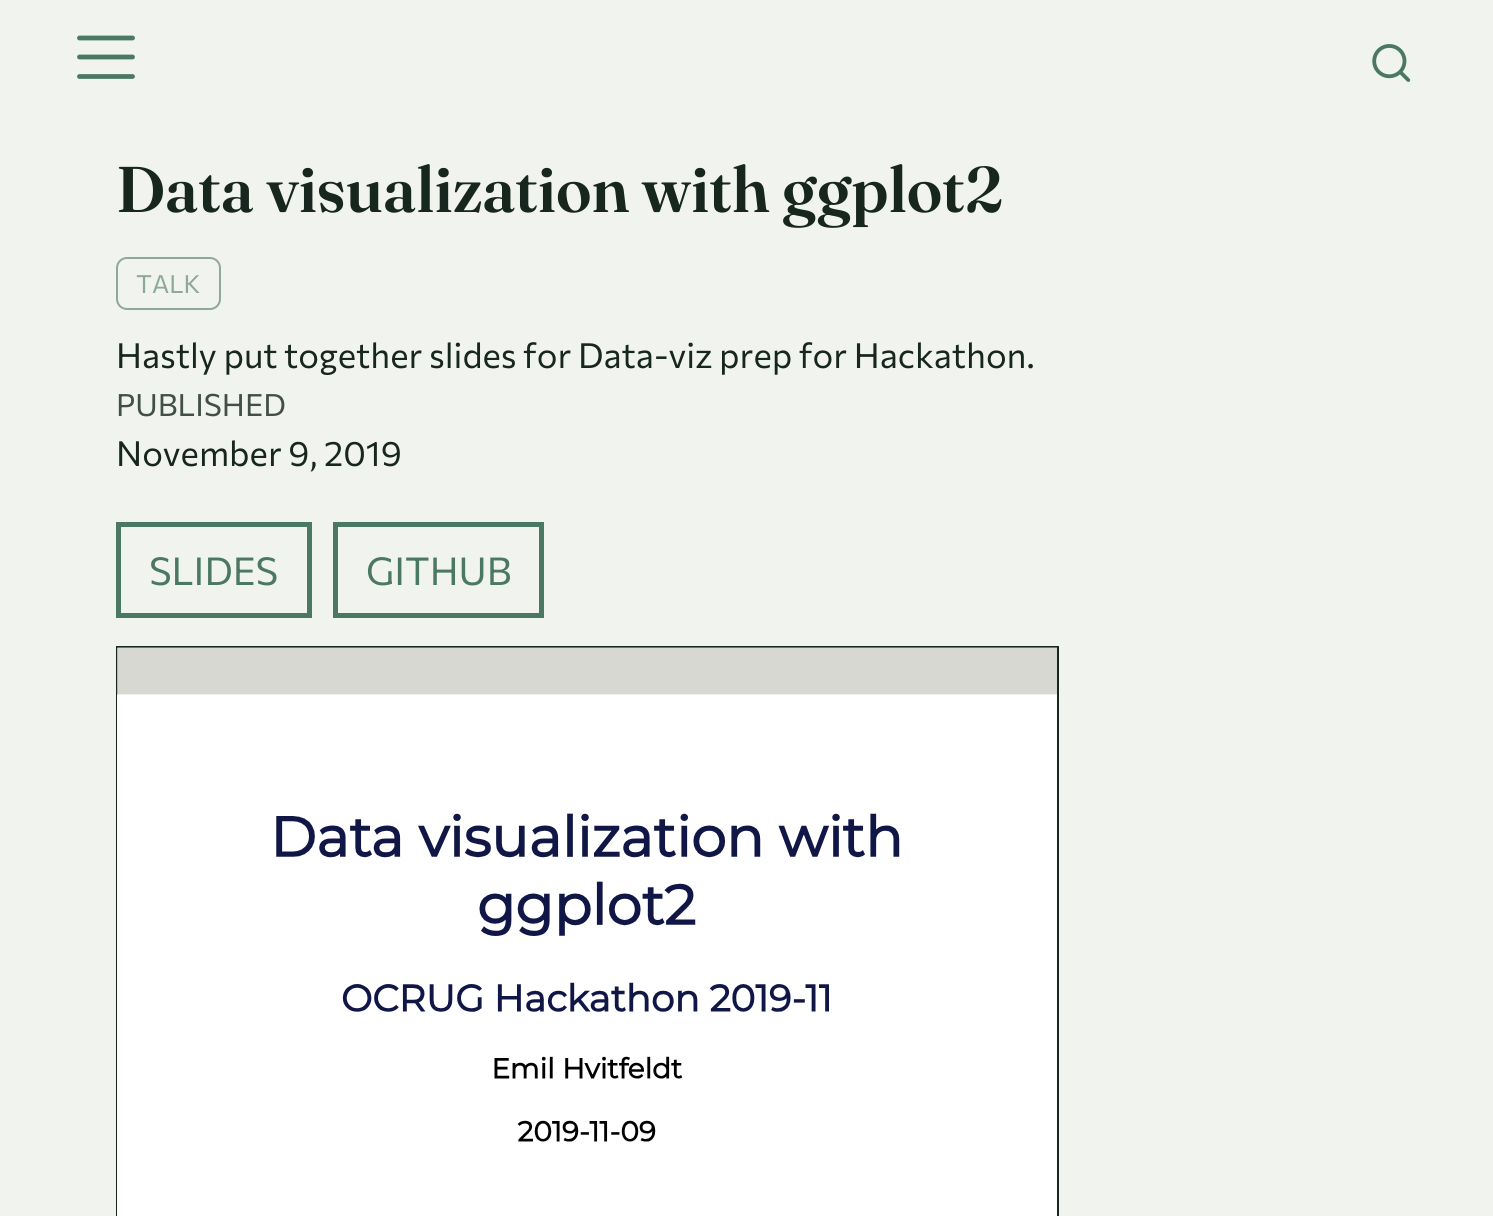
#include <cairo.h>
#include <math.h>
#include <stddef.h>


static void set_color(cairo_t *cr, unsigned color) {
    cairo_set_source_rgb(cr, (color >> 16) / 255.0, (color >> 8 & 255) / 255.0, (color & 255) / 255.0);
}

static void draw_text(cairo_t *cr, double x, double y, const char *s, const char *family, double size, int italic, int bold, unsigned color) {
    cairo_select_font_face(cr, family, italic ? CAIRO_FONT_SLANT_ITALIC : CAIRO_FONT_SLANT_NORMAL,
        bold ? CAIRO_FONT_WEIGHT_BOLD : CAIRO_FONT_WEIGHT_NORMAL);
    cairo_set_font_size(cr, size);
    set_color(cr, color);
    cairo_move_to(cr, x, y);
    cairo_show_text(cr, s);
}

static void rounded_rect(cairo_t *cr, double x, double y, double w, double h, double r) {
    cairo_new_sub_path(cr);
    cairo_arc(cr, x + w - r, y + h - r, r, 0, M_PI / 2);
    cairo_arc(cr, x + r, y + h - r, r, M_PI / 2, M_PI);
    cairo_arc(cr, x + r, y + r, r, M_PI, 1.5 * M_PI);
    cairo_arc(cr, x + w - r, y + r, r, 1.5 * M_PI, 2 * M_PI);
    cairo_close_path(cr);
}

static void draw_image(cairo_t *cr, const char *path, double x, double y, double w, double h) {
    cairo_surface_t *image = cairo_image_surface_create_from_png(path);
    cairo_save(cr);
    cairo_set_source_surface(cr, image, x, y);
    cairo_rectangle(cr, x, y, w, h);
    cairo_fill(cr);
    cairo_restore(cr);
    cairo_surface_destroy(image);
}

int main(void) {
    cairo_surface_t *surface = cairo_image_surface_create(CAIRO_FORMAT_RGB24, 1493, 1216);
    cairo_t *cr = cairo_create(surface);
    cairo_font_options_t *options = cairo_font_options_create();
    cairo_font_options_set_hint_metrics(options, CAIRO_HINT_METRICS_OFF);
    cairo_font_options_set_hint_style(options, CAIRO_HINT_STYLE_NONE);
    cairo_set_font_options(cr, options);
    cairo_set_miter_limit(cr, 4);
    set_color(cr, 0xF0F3EE);
    cairo_paint(cr);
    cairo_new_path(cr);
    cairo_move_to(cr, 79.5, 38);
    cairo_line_to(cr, 132.5, 38);
    cairo_move_to(cr, 79.5, 57);
    cairo_line_to(cr, 132.5, 57);
    cairo_move_to(cr, 79.5, 76.5);
    cairo_line_to(cr, 132.5, 76.5);
    set_color(cr, 0x4A7862);
    cairo_set_line_width(cr, 4.8);
    cairo_set_line_cap(cr, CAIRO_LINE_CAP_ROUND);
    cairo_stroke(cr);
    draw_image(cr, "assets/img1.png", 1372, 44, 39, 38);
    draw_text(cr, 116, 212, "Data visualization with ggplot2", "Fraunces SemiBold", 64.5, 0, 0, 0x17261E);
    rounded_rect(cr, 117, 258, 103, 51, 10);
    set_color(cr, 0x8CA99A);
    cairo_set_line_width(cr, 2);
    cairo_set_line_cap(cr, CAIRO_LINE_CAP_BUTT);
    cairo_stroke(cr);
    draw_text(cr, 136, 293, "TALK", "Commissioner", 25, 0, 0, 0x8CA99A);
    draw_text(cr, 116, 368, "Hastly put together slides for Data-viz prep for Hackathon.", "Commissioner", 34.65, 0, 0, 0x17261E);
    draw_text(cr, 116, 416, "PUBLISHED", "Commissioner", 30.75, 0, 0, 0x424F48);
    draw_text(cr, 116, 466, "November 9, 2019", "Commissioner", 34.65, 0, 0, 0x17261E);
    cairo_rectangle(cr, 118.5, 524.5, 191, 91);
    set_color(cr, 0x4A7862);
    cairo_set_line_width(cr, 5);
    cairo_stroke(cr);
    draw_text(cr, 149, 585, "SLIDES", "Commissioner", 38.5, 0, 0, 0x4A7862);
    cairo_rectangle(cr, 335.5, 524.5, 206, 91);
    cairo_stroke(cr);
    draw_text(cr, 366, 585, "GITHUB", "Commissioner", 38.5, 0, 0, 0x4A7862);
    cairo_rectangle(cr, 117, 647, 941, 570);
    set_color(cr, 0x17261E);
    cairo_set_line_width(cr, 2);
    cairo_stroke(cr);
    draw_image(cr, "assets/img2.png", 117, 647, 940, 569);
    cairo_surface_write_to_png(surface, "output.png");
    cairo_font_options_destroy(options);
    cairo_destroy(cr);
    cairo_surface_destroy(surface);
    return 0;
}
